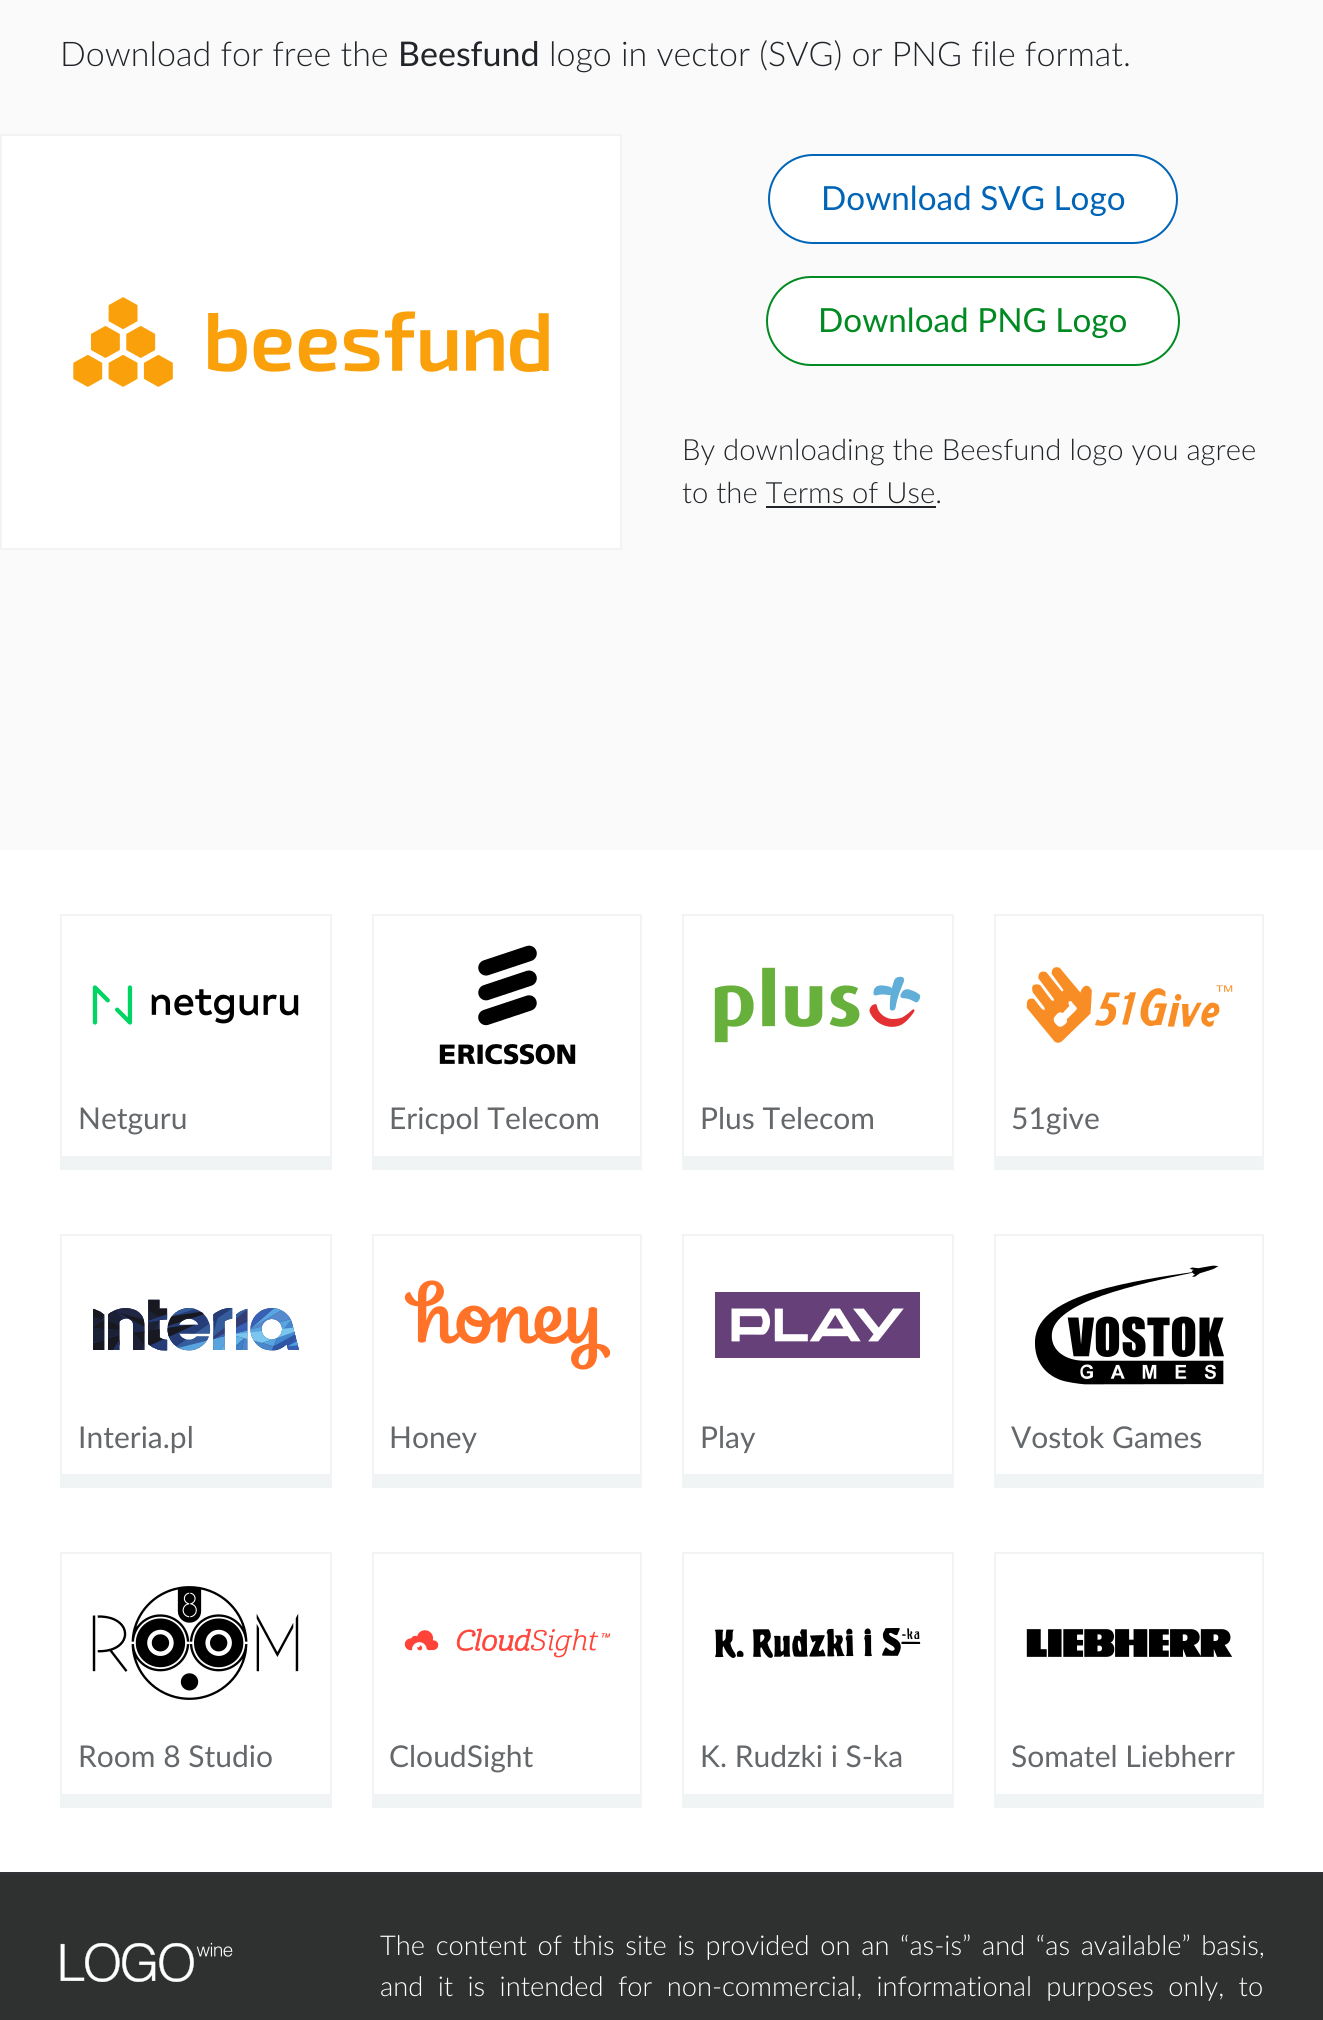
#include <cairo.h>
#include <math.h>
#include <stddef.h>


static void set_color(cairo_t *cr, unsigned color) {
    cairo_set_source_rgb(cr, (color >> 16) / 255.0, (color >> 8 & 255) / 255.0, (color & 255) / 255.0);
}

static void draw_text(cairo_t *cr, double x, double y, const char *s, const char *family, double size, int italic, int bold, unsigned color) {
    cairo_select_font_face(cr, family, italic ? CAIRO_FONT_SLANT_ITALIC : CAIRO_FONT_SLANT_NORMAL,
        bold ? CAIRO_FONT_WEIGHT_BOLD : CAIRO_FONT_WEIGHT_NORMAL);
    cairo_set_font_size(cr, size);
    set_color(cr, color);
    cairo_move_to(cr, x, y);
    cairo_show_text(cr, s);
}

static void draw_spaced(cairo_t *cr, double x, double y, const char *s, double letter, double word) {
    cairo_move_to(cr, x, y);
    while (*s) {
        char ch[5] = {0};
        int n = 0;
        do ch[n++] = *s++; while ((*s & 0xC0) == 0x80);
        cairo_show_text(cr, ch);
        cairo_rel_move_to(cr, letter + word * (*ch == ' '), 0);
    }
}

static void fill_rect(cairo_t *cr, double x, double y, double w, double h, unsigned color) {
    set_color(cr, color);
    cairo_rectangle(cr, x, y, w, h);
    cairo_fill(cr);
}

static void rounded_rect(cairo_t *cr, double x, double y, double w, double h, double r) {
    cairo_new_sub_path(cr);
    cairo_arc(cr, x + w - r, y + h - r, r, 0, M_PI / 2);
    cairo_arc(cr, x + r, y + h - r, r, M_PI / 2, M_PI);
    cairo_arc(cr, x + r, y + r, r, M_PI, 1.5 * M_PI);
    cairo_arc(cr, x + w - r, y + r, r, 1.5 * M_PI, 2 * M_PI);
    cairo_close_path(cr);
}

static void draw_image(cairo_t *cr, const char *path, double x, double y, double w, double h) {
    cairo_surface_t *image = cairo_image_surface_create_from_png(path);
    cairo_save(cr);
    cairo_set_source_surface(cr, image, x, y);
    cairo_rectangle(cr, x, y, w, h);
    cairo_fill(cr);
    cairo_restore(cr);
    cairo_surface_destroy(image);
}

int main(void) {
    cairo_surface_t *surface = cairo_image_surface_create(CAIRO_FORMAT_RGB24, 1323, 2020);
    cairo_t *cr = cairo_create(surface);
    cairo_font_options_t *options = cairo_font_options_create();
    cairo_font_options_set_hint_metrics(options, CAIRO_HINT_METRICS_OFF);
    cairo_font_options_set_hint_style(options, CAIRO_HINT_STYLE_NONE);
    cairo_set_font_options(cr, options);
    cairo_set_miter_limit(cr, 4);
    set_color(cr, 0xFAFAFA);
    cairo_paint(cr);
    draw_text(cr, 60, 66, "Download for free the", "Lato Light", 34, 0, 0, 0x212529);
    draw_text(cr, 398, 66, "Beesfund", "Lato", 34, 0, 0, 0x212529);
    draw_text(cr, 549, 66, "logo in vector (SVG) or PNG file format.", "Lato Light", 34, 0, 0, 0x212529);
    set_color(cr, 0xFFFFFF);
    cairo_rectangle(cr, 1, 135, 620, 414);
    cairo_fill_preserve(cr);
    set_color(cr, 0xF1F3F5);
    cairo_stroke(cr);
    draw_image(cr, "assets/img1.png", 73, 297, 476, 90);
    set_color(cr, 0xFFFFFF);
    rounded_rect(cr, 769, 155, 408, 88, 44);
    cairo_fill_preserve(cr);
    set_color(cr, 0x0064B7);
    cairo_stroke(cr);
    draw_text(cr, 821, 210, "Download SVG Logo", "Lato", 33.25, 0, 0, 0x0064B7);
    set_color(cr, 0xFFFFFF);
    rounded_rect(cr, 767, 277, 412, 88, 44);
    cairo_fill_preserve(cr);
    set_color(cr, 0x008A21);
    cairo_stroke(cr);
    draw_text(cr, 818, 332, "Download PNG Logo", "Lato", 33.25, 0, 0, 0x008A21);
    draw_text(cr, 682, 460, "By downloading the Beesfund logo you agree", "Lato Light", 29.25, 0, 0, 0x212529);
    draw_text(cr, 682, 503, "to the Terms of Use.", "Lato Light", 29.25, 0, 0, 0x212529);
    fill_rect(cr, 766, 506, 170, 2, 0x212529);
    fill_rect(cr, 0, 850, 1323, 1022, 0xFFFFFF);
    set_color(cr, 0xF1F3F5);
    cairo_new_path(cr);
    cairo_move_to(cr, 60, 914);
    cairo_line_to(cr, 332, 914);
    cairo_line_to(cr, 330, 916);
    cairo_line_to(cr, 62, 916);
    cairo_close_path(cr);
    cairo_fill(cr);
    cairo_set_source_rgba(cr, 0.812, 0.847, 0.863, 0.3);
    cairo_new_path(cr);
    cairo_move_to(cr, 332, 914);
    cairo_line_to(cr, 332, 1170);
    cairo_line_to(cr, 330, 1156);
    cairo_line_to(cr, 330, 916);
    cairo_close_path(cr);
    cairo_fill(cr);
    cairo_new_path(cr);
    cairo_move_to(cr, 332, 1170);
    cairo_line_to(cr, 60, 1170);
    cairo_line_to(cr, 62, 1156);
    cairo_line_to(cr, 330, 1156);
    cairo_close_path(cr);
    cairo_fill(cr);
    cairo_new_path(cr);
    cairo_move_to(cr, 60, 1170);
    cairo_line_to(cr, 60, 914);
    cairo_line_to(cr, 62, 916);
    cairo_line_to(cr, 62, 1156);
    cairo_close_path(cr);
    cairo_fill(cr);
    draw_image(cr, "assets/img2.png", 92, 985, 207, 40);
    draw_text(cr, 78, 1129, "Netguru", "Lato", 30, 0, 0, 0x65686B);
    set_color(cr, 0xF1F3F5);
    cairo_new_path(cr);
    cairo_move_to(cr, 372, 914);
    cairo_line_to(cr, 642, 914);
    cairo_line_to(cr, 640, 916);
    cairo_line_to(cr, 374, 916);
    cairo_close_path(cr);
    cairo_fill(cr);
    cairo_set_source_rgba(cr, 0.812, 0.847, 0.863, 0.3);
    cairo_new_path(cr);
    cairo_move_to(cr, 642, 914);
    cairo_line_to(cr, 642, 1170);
    cairo_line_to(cr, 640, 1156);
    cairo_line_to(cr, 640, 916);
    cairo_close_path(cr);
    cairo_fill(cr);
    cairo_new_path(cr);
    cairo_move_to(cr, 642, 1170);
    cairo_line_to(cr, 372, 1170);
    cairo_line_to(cr, 374, 1156);
    cairo_line_to(cr, 640, 1156);
    cairo_close_path(cr);
    cairo_fill(cr);
    cairo_new_path(cr);
    cairo_move_to(cr, 372, 1170);
    cairo_line_to(cr, 372, 914);
    cairo_line_to(cr, 374, 916);
    cairo_line_to(cr, 374, 1156);
    cairo_close_path(cr);
    cairo_fill(cr);
    draw_image(cr, "assets/img3.png", 439, 945, 137, 120);
    draw_text(cr, 389, 1129, "Ericpol Telecom", "Lato", 30, 0, 0, 0x65686B);
    set_color(cr, 0xF1F3F5);
    cairo_new_path(cr);
    cairo_move_to(cr, 682, 914);
    cairo_line_to(cr, 954, 914);
    cairo_line_to(cr, 952, 916);
    cairo_line_to(cr, 684, 916);
    cairo_close_path(cr);
    cairo_fill(cr);
    cairo_set_source_rgba(cr, 0.812, 0.847, 0.863, 0.3);
    cairo_new_path(cr);
    cairo_move_to(cr, 954, 914);
    cairo_line_to(cr, 954, 1170);
    cairo_line_to(cr, 952, 1156);
    cairo_line_to(cr, 952, 916);
    cairo_close_path(cr);
    cairo_fill(cr);
    cairo_new_path(cr);
    cairo_move_to(cr, 954, 1170);
    cairo_line_to(cr, 682, 1170);
    cairo_line_to(cr, 684, 1156);
    cairo_line_to(cr, 952, 1156);
    cairo_close_path(cr);
    cairo_fill(cr);
    cairo_new_path(cr);
    cairo_move_to(cr, 682, 1170);
    cairo_line_to(cr, 682, 914);
    cairo_line_to(cr, 684, 916);
    cairo_line_to(cr, 684, 1156);
    cairo_close_path(cr);
    cairo_fill(cr);
    draw_image(cr, "assets/img4.png", 714, 967, 207, 76);
    draw_text(cr, 700, 1129, "Plus Telecom", "Lato", 30, 0, 0, 0x65686B);
    set_color(cr, 0xF1F3F5);
    cairo_new_path(cr);
    cairo_move_to(cr, 994, 914);
    cairo_line_to(cr, 1264, 914);
    cairo_line_to(cr, 1262, 916);
    cairo_line_to(cr, 996, 916);
    cairo_close_path(cr);
    cairo_fill(cr);
    cairo_set_source_rgba(cr, 0.812, 0.847, 0.863, 0.3);
    cairo_new_path(cr);
    cairo_move_to(cr, 1264, 914);
    cairo_line_to(cr, 1264, 1170);
    cairo_line_to(cr, 1262, 1156);
    cairo_line_to(cr, 1262, 916);
    cairo_close_path(cr);
    cairo_fill(cr);
    cairo_new_path(cr);
    cairo_move_to(cr, 1264, 1170);
    cairo_line_to(cr, 994, 1170);
    cairo_line_to(cr, 996, 1156);
    cairo_line_to(cr, 1262, 1156);
    cairo_close_path(cr);
    cairo_fill(cr);
    cairo_new_path(cr);
    cairo_move_to(cr, 994, 1170);
    cairo_line_to(cr, 994, 914);
    cairo_line_to(cr, 996, 916);
    cairo_line_to(cr, 996, 1156);
    cairo_close_path(cr);
    cairo_fill(cr);
    draw_image(cr, "assets/img5.png", 1026, 967, 207, 76);
    draw_text(cr, 1011, 1129, "51give", "Lato", 30, 0, 0, 0x65686B);
    set_color(cr, 0xF1F3F5);
    cairo_new_path(cr);
    cairo_move_to(cr, 60, 1234);
    cairo_line_to(cr, 332, 1234);
    cairo_line_to(cr, 330, 1236);
    cairo_line_to(cr, 62, 1236);
    cairo_close_path(cr);
    cairo_fill(cr);
    cairo_set_source_rgba(cr, 0.812, 0.847, 0.863, 0.3);
    cairo_new_path(cr);
    cairo_move_to(cr, 332, 1234);
    cairo_line_to(cr, 332, 1488);
    cairo_line_to(cr, 330, 1474);
    cairo_line_to(cr, 330, 1236);
    cairo_close_path(cr);
    cairo_fill(cr);
    cairo_new_path(cr);
    cairo_move_to(cr, 332, 1488);
    cairo_line_to(cr, 60, 1488);
    cairo_line_to(cr, 62, 1474);
    cairo_line_to(cr, 330, 1474);
    cairo_close_path(cr);
    cairo_fill(cr);
    cairo_new_path(cr);
    cairo_move_to(cr, 60, 1488);
    cairo_line_to(cr, 60, 1234);
    cairo_line_to(cr, 62, 1236);
    cairo_line_to(cr, 62, 1474);
    cairo_close_path(cr);
    cairo_fill(cr);
    draw_image(cr, "assets/img6.png", 93, 1299, 206, 52);
    draw_text(cr, 78, 1448, "Interia.pl", "Lato", 30, 0, 0, 0x65686B);
    set_color(cr, 0xF1F3F5);
    cairo_new_path(cr);
    cairo_move_to(cr, 372, 1234);
    cairo_line_to(cr, 642, 1234);
    cairo_line_to(cr, 640, 1236);
    cairo_line_to(cr, 374, 1236);
    cairo_close_path(cr);
    cairo_fill(cr);
    cairo_set_source_rgba(cr, 0.812, 0.847, 0.863, 0.3);
    cairo_new_path(cr);
    cairo_move_to(cr, 642, 1234);
    cairo_line_to(cr, 642, 1488);
    cairo_line_to(cr, 640, 1474);
    cairo_line_to(cr, 640, 1236);
    cairo_close_path(cr);
    cairo_fill(cr);
    cairo_new_path(cr);
    cairo_move_to(cr, 642, 1488);
    cairo_line_to(cr, 372, 1488);
    cairo_line_to(cr, 374, 1474);
    cairo_line_to(cr, 640, 1474);
    cairo_close_path(cr);
    cairo_fill(cr);
    cairo_new_path(cr);
    cairo_move_to(cr, 372, 1488);
    cairo_line_to(cr, 372, 1234);
    cairo_line_to(cr, 374, 1236);
    cairo_line_to(cr, 374, 1474);
    cairo_close_path(cr);
    cairo_fill(cr);
    draw_image(cr, "assets/img7.png", 404, 1280, 207, 90);
    draw_text(cr, 389, 1448, "Honey", "Lato", 30, 0, 0, 0x65686B);
    set_color(cr, 0xF1F3F5);
    cairo_new_path(cr);
    cairo_move_to(cr, 682, 1234);
    cairo_line_to(cr, 954, 1234);
    cairo_line_to(cr, 952, 1236);
    cairo_line_to(cr, 684, 1236);
    cairo_close_path(cr);
    cairo_fill(cr);
    cairo_set_source_rgba(cr, 0.812, 0.847, 0.863, 0.3);
    cairo_new_path(cr);
    cairo_move_to(cr, 954, 1234);
    cairo_line_to(cr, 954, 1488);
    cairo_line_to(cr, 952, 1474);
    cairo_line_to(cr, 952, 1236);
    cairo_close_path(cr);
    cairo_fill(cr);
    cairo_new_path(cr);
    cairo_move_to(cr, 954, 1488);
    cairo_line_to(cr, 682, 1488);
    cairo_line_to(cr, 684, 1474);
    cairo_line_to(cr, 952, 1474);
    cairo_close_path(cr);
    cairo_fill(cr);
    cairo_new_path(cr);
    cairo_move_to(cr, 682, 1488);
    cairo_line_to(cr, 682, 1234);
    cairo_line_to(cr, 684, 1236);
    cairo_line_to(cr, 684, 1474);
    cairo_close_path(cr);
    cairo_fill(cr);
    draw_image(cr, "assets/img8.png", 715, 1292, 205, 66);
    draw_text(cr, 700, 1448, "Play", "Lato", 30, 0, 0, 0x65686B);
    set_color(cr, 0xF1F3F5);
    cairo_new_path(cr);
    cairo_move_to(cr, 994, 1234);
    cairo_line_to(cr, 1264, 1234);
    cairo_line_to(cr, 1262, 1236);
    cairo_line_to(cr, 996, 1236);
    cairo_close_path(cr);
    cairo_fill(cr);
    cairo_set_source_rgba(cr, 0.812, 0.847, 0.863, 0.3);
    cairo_new_path(cr);
    cairo_move_to(cr, 1264, 1234);
    cairo_line_to(cr, 1264, 1488);
    cairo_line_to(cr, 1262, 1474);
    cairo_line_to(cr, 1262, 1236);
    cairo_close_path(cr);
    cairo_fill(cr);
    cairo_new_path(cr);
    cairo_move_to(cr, 1264, 1488);
    cairo_line_to(cr, 994, 1488);
    cairo_line_to(cr, 996, 1474);
    cairo_line_to(cr, 1262, 1474);
    cairo_close_path(cr);
    cairo_fill(cr);
    cairo_new_path(cr);
    cairo_move_to(cr, 994, 1488);
    cairo_line_to(cr, 994, 1234);
    cairo_line_to(cr, 996, 1236);
    cairo_line_to(cr, 996, 1474);
    cairo_close_path(cr);
    cairo_fill(cr);
    draw_image(cr, "assets/img9.png", 1035, 1265, 189, 120);
    draw_text(cr, 1011, 1448, "Vostok Games", "Lato", 30, 0, 0, 0x65686B);
    set_color(cr, 0xF1F3F5);
    cairo_new_path(cr);
    cairo_move_to(cr, 60, 1552);
    cairo_line_to(cr, 332, 1552);
    cairo_line_to(cr, 330, 1554);
    cairo_line_to(cr, 62, 1554);
    cairo_close_path(cr);
    cairo_fill(cr);
    cairo_set_source_rgba(cr, 0.812, 0.847, 0.863, 0.3);
    cairo_new_path(cr);
    cairo_move_to(cr, 332, 1552);
    cairo_line_to(cr, 332, 1808);
    cairo_line_to(cr, 330, 1794);
    cairo_line_to(cr, 330, 1554);
    cairo_close_path(cr);
    cairo_fill(cr);
    cairo_new_path(cr);
    cairo_move_to(cr, 332, 1808);
    cairo_line_to(cr, 60, 1808);
    cairo_line_to(cr, 62, 1794);
    cairo_line_to(cr, 330, 1794);
    cairo_close_path(cr);
    cairo_fill(cr);
    cairo_new_path(cr);
    cairo_move_to(cr, 60, 1808);
    cairo_line_to(cr, 60, 1552);
    cairo_line_to(cr, 62, 1554);
    cairo_line_to(cr, 62, 1794);
    cairo_close_path(cr);
    cairo_fill(cr);
    draw_image(cr, "assets/img10.png", 92, 1586, 207, 114);
    draw_text(cr, 78, 1767, "Room 8 Studio", "Lato", 30, 0, 0, 0x65686B);
    set_color(cr, 0xF1F3F5);
    cairo_new_path(cr);
    cairo_move_to(cr, 372, 1552);
    cairo_line_to(cr, 642, 1552);
    cairo_line_to(cr, 640, 1554);
    cairo_line_to(cr, 374, 1554);
    cairo_close_path(cr);
    cairo_fill(cr);
    cairo_set_source_rgba(cr, 0.812, 0.847, 0.863, 0.3);
    cairo_new_path(cr);
    cairo_move_to(cr, 642, 1552);
    cairo_line_to(cr, 642, 1808);
    cairo_line_to(cr, 640, 1794);
    cairo_line_to(cr, 640, 1554);
    cairo_close_path(cr);
    cairo_fill(cr);
    cairo_new_path(cr);
    cairo_move_to(cr, 642, 1808);
    cairo_line_to(cr, 372, 1808);
    cairo_line_to(cr, 374, 1794);
    cairo_line_to(cr, 640, 1794);
    cairo_close_path(cr);
    cairo_fill(cr);
    cairo_new_path(cr);
    cairo_move_to(cr, 372, 1808);
    cairo_line_to(cr, 372, 1552);
    cairo_line_to(cr, 374, 1554);
    cairo_line_to(cr, 374, 1794);
    cairo_close_path(cr);
    cairo_fill(cr);
    draw_image(cr, "assets/img11.png", 404, 1628, 207, 30);
    draw_text(cr, 389, 1767, "CloudSight", "Lato", 30, 0, 0, 0x65686B);
    set_color(cr, 0xF1F3F5);
    cairo_new_path(cr);
    cairo_move_to(cr, 682, 1552);
    cairo_line_to(cr, 954, 1552);
    cairo_line_to(cr, 952, 1554);
    cairo_line_to(cr, 684, 1554);
    cairo_close_path(cr);
    cairo_fill(cr);
    cairo_set_source_rgba(cr, 0.812, 0.847, 0.863, 0.3);
    cairo_new_path(cr);
    cairo_move_to(cr, 954, 1552);
    cairo_line_to(cr, 954, 1808);
    cairo_line_to(cr, 952, 1794);
    cairo_line_to(cr, 952, 1554);
    cairo_close_path(cr);
    cairo_fill(cr);
    cairo_new_path(cr);
    cairo_move_to(cr, 954, 1808);
    cairo_line_to(cr, 682, 1808);
    cairo_line_to(cr, 684, 1794);
    cairo_line_to(cr, 952, 1794);
    cairo_close_path(cr);
    cairo_fill(cr);
    cairo_new_path(cr);
    cairo_move_to(cr, 682, 1808);
    cairo_line_to(cr, 682, 1552);
    cairo_line_to(cr, 684, 1554);
    cairo_line_to(cr, 684, 1794);
    cairo_close_path(cr);
    cairo_fill(cr);
    draw_image(cr, "assets/img12.png", 714, 1628, 207, 30);
    draw_text(cr, 700, 1767, "K. Rudzki i S-ka", "Lato", 30, 0, 0, 0x65686B);
    set_color(cr, 0xF1F3F5);
    cairo_new_path(cr);
    cairo_move_to(cr, 994, 1552);
    cairo_line_to(cr, 1264, 1552);
    cairo_line_to(cr, 1262, 1554);
    cairo_line_to(cr, 996, 1554);
    cairo_close_path(cr);
    cairo_fill(cr);
    cairo_set_source_rgba(cr, 0.812, 0.847, 0.863, 0.3);
    cairo_new_path(cr);
    cairo_move_to(cr, 1264, 1552);
    cairo_line_to(cr, 1264, 1808);
    cairo_line_to(cr, 1262, 1794);
    cairo_line_to(cr, 1262, 1554);
    cairo_close_path(cr);
    cairo_fill(cr);
    cairo_new_path(cr);
    cairo_move_to(cr, 1264, 1808);
    cairo_line_to(cr, 994, 1808);
    cairo_line_to(cr, 996, 1794);
    cairo_line_to(cr, 1262, 1794);
    cairo_close_path(cr);
    cairo_fill(cr);
    cairo_new_path(cr);
    cairo_move_to(cr, 994, 1808);
    cairo_line_to(cr, 994, 1552);
    cairo_line_to(cr, 996, 1554);
    cairo_line_to(cr, 996, 1794);
    cairo_close_path(cr);
    cairo_fill(cr);
    draw_image(cr, "assets/img13.png", 1026, 1629, 207, 28);
    draw_text(cr, 1011, 1767, "Somatel Liebherr", "Lato", 30, 0, 0, 0x65686B);
    fill_rect(cr, 0, 1874, 1323, 146, 0x2F3131);
    fill_rect(cr, 0, 1872, 1323, 2, 0x303436);
    draw_image(cr, "assets/img14.png", 60, 1942, 173, 40);
    cairo_select_font_face(cr, "Lato Light", CAIRO_FONT_SLANT_NORMAL, CAIRO_FONT_WEIGHT_NORMAL);
    cairo_set_font_size(cr, 27.3);
    set_color(cr, 0xFFFFFF);
    draw_spaced(cr, 380, 1955, "The content of this site is provided on an “as-is” and “as available” basis,", 0, 3.25);
    draw_spaced(cr, 380, 1996, "and it is intended for non-commercial, informational purposes only, to", 0, 7);
    cairo_surface_write_to_png(surface, "output.png");
    cairo_font_options_destroy(options);
    cairo_destroy(cr);
    cairo_surface_destroy(surface);
    return 0;
}
